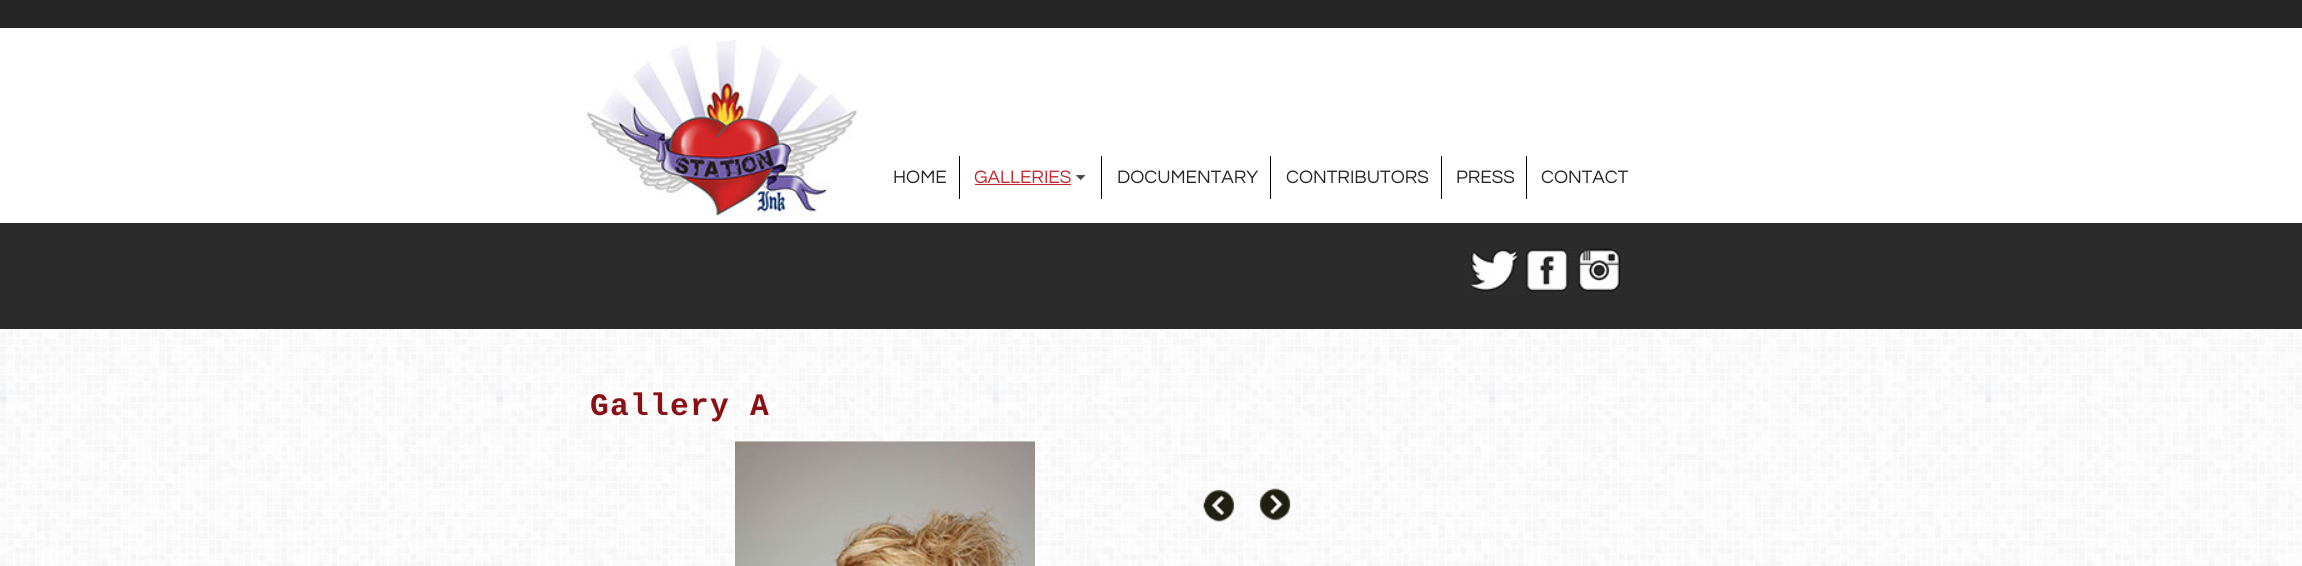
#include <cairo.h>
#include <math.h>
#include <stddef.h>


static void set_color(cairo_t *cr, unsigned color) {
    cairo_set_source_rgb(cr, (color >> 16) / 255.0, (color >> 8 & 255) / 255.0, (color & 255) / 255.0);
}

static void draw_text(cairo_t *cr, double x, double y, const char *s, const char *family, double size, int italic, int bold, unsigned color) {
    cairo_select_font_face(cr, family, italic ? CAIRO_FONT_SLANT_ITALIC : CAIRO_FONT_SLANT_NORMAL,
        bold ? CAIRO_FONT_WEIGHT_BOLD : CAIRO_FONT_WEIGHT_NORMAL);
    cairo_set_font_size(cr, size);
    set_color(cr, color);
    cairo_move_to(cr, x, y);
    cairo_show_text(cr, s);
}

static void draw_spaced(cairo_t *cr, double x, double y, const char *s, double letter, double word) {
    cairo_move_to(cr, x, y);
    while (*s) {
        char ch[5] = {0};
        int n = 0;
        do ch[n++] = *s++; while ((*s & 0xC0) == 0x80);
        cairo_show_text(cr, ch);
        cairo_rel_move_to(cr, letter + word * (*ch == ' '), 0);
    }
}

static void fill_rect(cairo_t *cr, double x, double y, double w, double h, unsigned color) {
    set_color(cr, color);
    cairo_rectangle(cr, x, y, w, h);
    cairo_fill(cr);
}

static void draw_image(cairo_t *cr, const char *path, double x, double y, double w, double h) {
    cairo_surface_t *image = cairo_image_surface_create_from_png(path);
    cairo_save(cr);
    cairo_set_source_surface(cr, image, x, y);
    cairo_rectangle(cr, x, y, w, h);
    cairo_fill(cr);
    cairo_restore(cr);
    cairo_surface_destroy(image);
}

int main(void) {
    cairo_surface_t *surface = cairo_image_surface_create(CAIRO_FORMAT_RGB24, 2302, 566);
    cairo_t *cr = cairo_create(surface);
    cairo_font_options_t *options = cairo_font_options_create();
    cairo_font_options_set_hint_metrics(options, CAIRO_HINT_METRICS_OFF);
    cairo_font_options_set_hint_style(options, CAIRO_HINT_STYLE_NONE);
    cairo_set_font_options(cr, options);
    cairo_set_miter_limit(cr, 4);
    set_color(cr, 0xFFFFFF);
    cairo_paint(cr);
    draw_image(cr, "assets/img1.png", 0, 329, 2302, 237);
    fill_rect(cr, 0, 0, 2302, 28, 0x262626);
    draw_image(cr, "assets/img2.png", 584, 40, 276, 179);
    fill_rect(cr, 959, 156, 1, 43, 0x000000);
    draw_text(cr, 893, 183, "HOME", "Questrial", 18.75, 0, 0, 0x262626);
    fill_rect(cr, 1101, 156, 1, 43, 0x000000);
    draw_text(cr, 974, 183, "GALLERIES", "Questrial", 18.75, 0, 0, 0xC1272D);
    fill_rect(cr, 975, 184, 96, 1, 0xC1272D);
    draw_image(cr, "assets/img3.png", 1076, 174, 10, 7);
    fill_rect(cr, 1270, 156, 1, 43, 0x000000);
    draw_text(cr, 1117, 183, "DOCUMENTARY", "Questrial", 18.75, 0, 0, 0x262626);
    fill_rect(cr, 1441, 156, 1, 43, 0x000000);
    draw_text(cr, 1286, 183, "CONTRIBUTORS", "Questrial", 18.75, 0, 0, 0x262626);
    fill_rect(cr, 1526, 156, 1, 43, 0x000000);
    draw_text(cr, 1456, 183, "PRESS", "Questrial", 18.75, 0, 0, 0x262626);
    draw_text(cr, 1541, 183, "CONTACT", "Questrial", 18.75, 0, 0, 0x262626);
    fill_rect(cr, 0, 223, 2302, 106, 0x2A2A2A);
    draw_image(cr, "assets/img4.png", 1464, 248, 160, 47);
    cairo_select_font_face(cr, "Liberation Mono", CAIRO_FONT_SLANT_NORMAL, CAIRO_FONT_WEIGHT_BOLD);
    cairo_set_font_size(cr, 31.25);
    set_color(cr, 0x891014);
    draw_spaced(cr, 590, 415, "Gallery A", 1.25, 0);
    draw_image(cr, "assets/img5.png", 735, 441, 300, 125);
    draw_image(cr, "assets/img6.png", 1203, 489, 31, 33);
    draw_image(cr, "assets/img7.png", 1259, 488, 32, 33);
    cairo_surface_write_to_png(surface, "output.png");
    cairo_font_options_destroy(options);
    cairo_destroy(cr);
    cairo_surface_destroy(surface);
    return 0;
}
